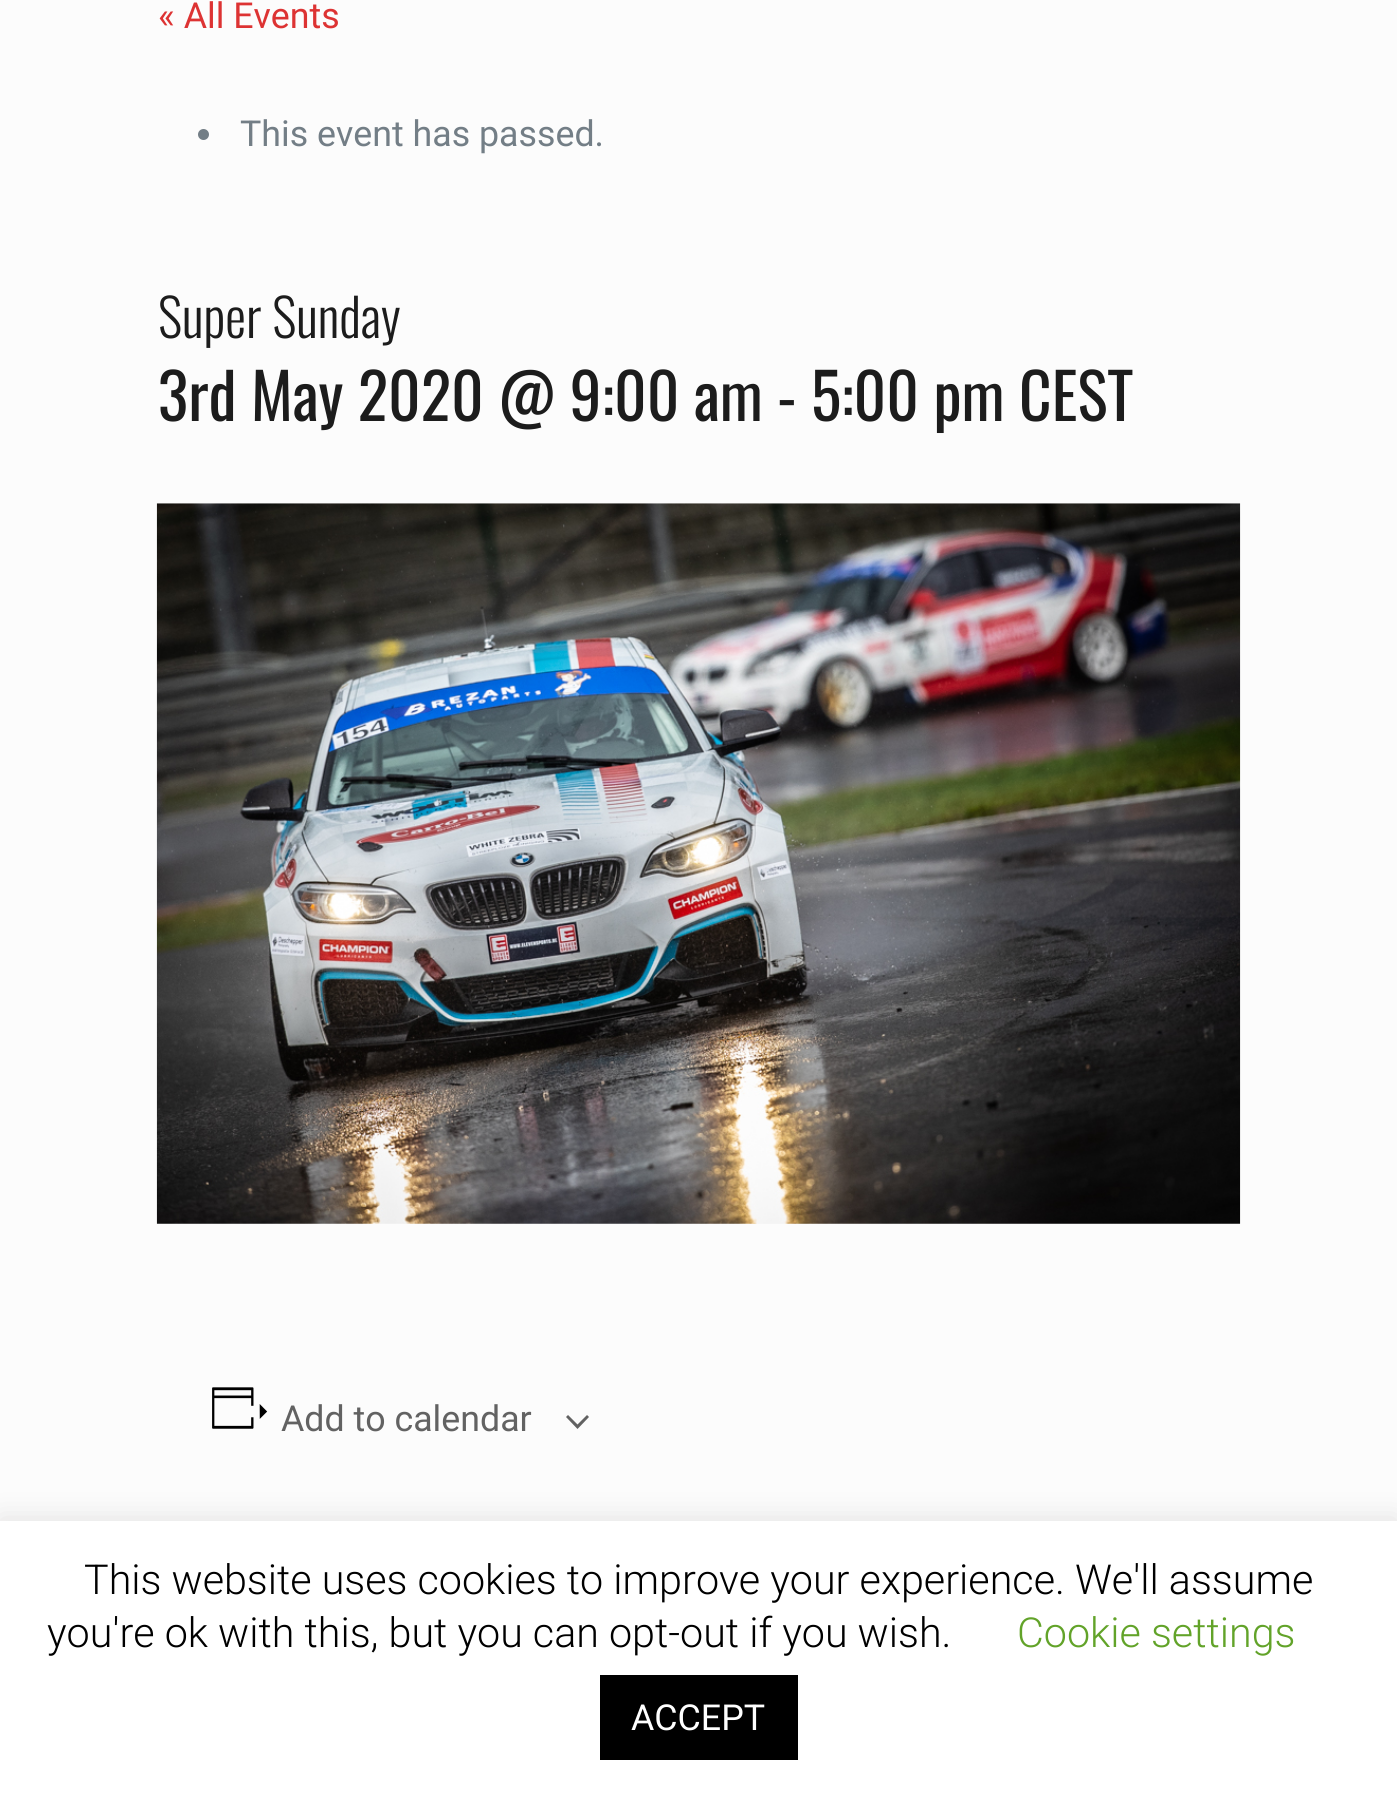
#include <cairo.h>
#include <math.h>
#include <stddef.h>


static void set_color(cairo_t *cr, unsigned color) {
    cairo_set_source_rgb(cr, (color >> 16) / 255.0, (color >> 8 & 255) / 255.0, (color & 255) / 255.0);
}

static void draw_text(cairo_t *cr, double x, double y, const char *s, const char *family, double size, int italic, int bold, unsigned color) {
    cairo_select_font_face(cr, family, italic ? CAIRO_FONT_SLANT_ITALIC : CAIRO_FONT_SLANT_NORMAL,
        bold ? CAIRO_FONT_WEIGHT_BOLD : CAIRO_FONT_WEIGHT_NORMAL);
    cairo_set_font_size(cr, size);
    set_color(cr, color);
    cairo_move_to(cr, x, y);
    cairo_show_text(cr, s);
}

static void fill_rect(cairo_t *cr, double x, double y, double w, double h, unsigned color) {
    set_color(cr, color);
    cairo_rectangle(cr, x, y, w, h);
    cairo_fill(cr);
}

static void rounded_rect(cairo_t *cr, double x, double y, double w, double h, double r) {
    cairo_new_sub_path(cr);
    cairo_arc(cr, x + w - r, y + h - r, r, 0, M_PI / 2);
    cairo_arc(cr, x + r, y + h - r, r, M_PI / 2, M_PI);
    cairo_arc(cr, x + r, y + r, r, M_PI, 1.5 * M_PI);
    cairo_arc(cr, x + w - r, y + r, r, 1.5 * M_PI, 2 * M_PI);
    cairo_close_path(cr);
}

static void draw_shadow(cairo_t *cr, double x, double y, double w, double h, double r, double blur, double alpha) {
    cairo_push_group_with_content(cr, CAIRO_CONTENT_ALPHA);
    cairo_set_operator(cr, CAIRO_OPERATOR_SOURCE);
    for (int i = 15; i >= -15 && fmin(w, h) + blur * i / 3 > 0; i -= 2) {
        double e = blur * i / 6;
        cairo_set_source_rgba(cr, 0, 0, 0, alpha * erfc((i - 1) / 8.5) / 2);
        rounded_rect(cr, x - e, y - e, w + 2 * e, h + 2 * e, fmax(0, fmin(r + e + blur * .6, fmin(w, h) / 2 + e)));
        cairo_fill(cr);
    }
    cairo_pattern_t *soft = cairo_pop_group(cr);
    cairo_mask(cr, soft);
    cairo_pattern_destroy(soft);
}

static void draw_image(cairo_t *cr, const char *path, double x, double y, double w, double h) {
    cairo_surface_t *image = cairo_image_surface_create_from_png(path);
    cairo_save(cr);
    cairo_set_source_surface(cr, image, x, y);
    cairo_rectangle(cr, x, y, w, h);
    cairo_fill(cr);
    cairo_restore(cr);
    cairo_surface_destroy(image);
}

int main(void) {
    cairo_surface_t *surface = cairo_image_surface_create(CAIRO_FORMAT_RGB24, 1397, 1805);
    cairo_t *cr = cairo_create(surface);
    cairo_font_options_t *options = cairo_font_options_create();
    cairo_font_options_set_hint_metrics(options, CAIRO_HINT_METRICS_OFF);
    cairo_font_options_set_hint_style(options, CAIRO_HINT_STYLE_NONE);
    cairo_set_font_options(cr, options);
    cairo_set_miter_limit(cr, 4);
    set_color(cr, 0xFCFCFC);
    cairo_paint(cr);
    draw_text(cr, 158, 28, "« All Events", "Roboto", 35.75, 0, 0, 0xDD3333);
    set_color(cr, 0x737E86);
    cairo_new_path(cr);
    cairo_arc(cr, 203.5, 134.5, 5.5, 0, 2 * M_PI);
    cairo_fill(cr);
    draw_text(cr, 240, 146, "This event has passed.", "Roboto", 35.75, 0, 0, 0x737E86);
    draw_text(cr, 158, 338, "Super Sunday", "Oswald Light", 52.25, 0, 0, 0x1C1C1C);
    draw_text(cr, 158, 421, "3rd May 2020 @ 9:00 am - 5:00 pm CEST", "Oswald", 63.25, 0, 0, 0x1C1C1C);
    draw_image(cr, "assets/img1.png", 156, 503, 1085, 721);
    draw_image(cr, "assets/img2.png", 212, 1387, 56, 42);
    draw_text(cr, 281, 1431, "Add to calendar", "Roboto", 35.75, 0, 0, 0x626262);
    cairo_set_fill_rule(cr, CAIRO_FILL_RULE_EVEN_ODD);
    cairo_new_path(cr);
    cairo_move_to(cr, 568, 1415);
    cairo_line_to(cr, 577.5, 1424.5);
    cairo_line_to(cr, 587, 1415);
    cairo_line_to(cr, 589, 1417);
    cairo_line_to(cr, 577.5, 1429);
    cairo_line_to(cr, 566, 1417);
    cairo_close_path(cr);
    cairo_fill(cr);
    set_color(cr, 0xACABAB);
    draw_shadow(cr, 0, 1518, 1397, 286, 0, 14, 0.3);
    fill_rect(cr, 0, 1521, 1397, 284, 0xFFFFFF);
    draw_text(cr, 84, 1594, "This website uses cookies to improve your experience. We'll assume", "Roboto Light", 41.25, 0, 0, 0x000000);
    draw_text(cr, 47, 1647, "you're ok with this, but you can opt-out if you wish.", "Roboto Light", 41.25, 0, 0, 0x000000);
    draw_text(cr, 1017, 1647, "Cookie settings", "Roboto Light", 41.25, 0, 0, 0x62A329);
    fill_rect(cr, 600, 1675, 198, 85, 0x000000);
    draw_text(cr, 631, 1730, "ACCEPT", "Roboto", 35.75, 0, 0, 0xFFFFFF);
    cairo_surface_write_to_png(surface, "output.png");
    cairo_font_options_destroy(options);
    cairo_destroy(cr);
    cairo_surface_destroy(surface);
    return 0;
}
